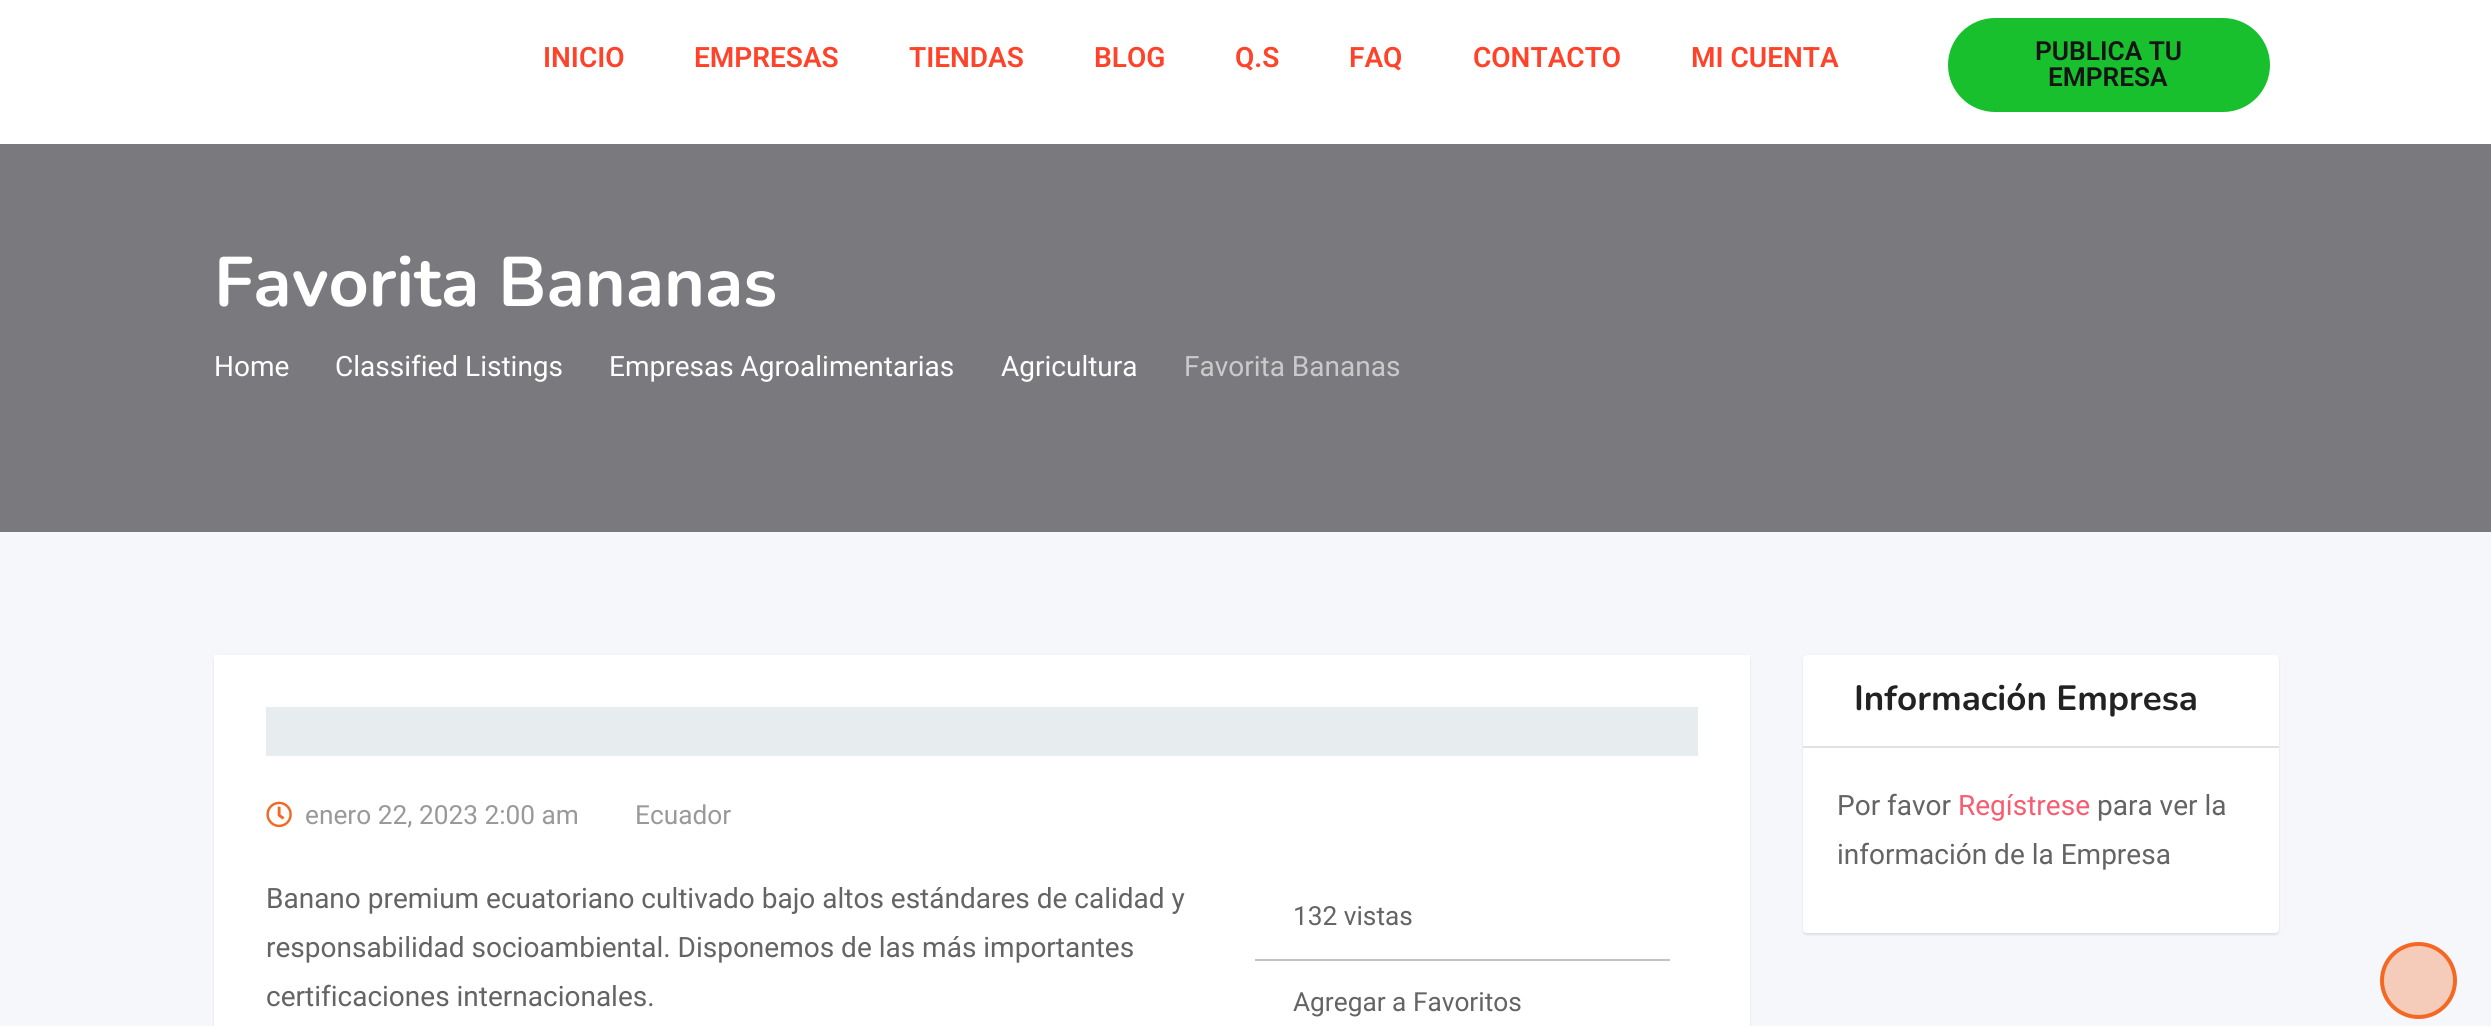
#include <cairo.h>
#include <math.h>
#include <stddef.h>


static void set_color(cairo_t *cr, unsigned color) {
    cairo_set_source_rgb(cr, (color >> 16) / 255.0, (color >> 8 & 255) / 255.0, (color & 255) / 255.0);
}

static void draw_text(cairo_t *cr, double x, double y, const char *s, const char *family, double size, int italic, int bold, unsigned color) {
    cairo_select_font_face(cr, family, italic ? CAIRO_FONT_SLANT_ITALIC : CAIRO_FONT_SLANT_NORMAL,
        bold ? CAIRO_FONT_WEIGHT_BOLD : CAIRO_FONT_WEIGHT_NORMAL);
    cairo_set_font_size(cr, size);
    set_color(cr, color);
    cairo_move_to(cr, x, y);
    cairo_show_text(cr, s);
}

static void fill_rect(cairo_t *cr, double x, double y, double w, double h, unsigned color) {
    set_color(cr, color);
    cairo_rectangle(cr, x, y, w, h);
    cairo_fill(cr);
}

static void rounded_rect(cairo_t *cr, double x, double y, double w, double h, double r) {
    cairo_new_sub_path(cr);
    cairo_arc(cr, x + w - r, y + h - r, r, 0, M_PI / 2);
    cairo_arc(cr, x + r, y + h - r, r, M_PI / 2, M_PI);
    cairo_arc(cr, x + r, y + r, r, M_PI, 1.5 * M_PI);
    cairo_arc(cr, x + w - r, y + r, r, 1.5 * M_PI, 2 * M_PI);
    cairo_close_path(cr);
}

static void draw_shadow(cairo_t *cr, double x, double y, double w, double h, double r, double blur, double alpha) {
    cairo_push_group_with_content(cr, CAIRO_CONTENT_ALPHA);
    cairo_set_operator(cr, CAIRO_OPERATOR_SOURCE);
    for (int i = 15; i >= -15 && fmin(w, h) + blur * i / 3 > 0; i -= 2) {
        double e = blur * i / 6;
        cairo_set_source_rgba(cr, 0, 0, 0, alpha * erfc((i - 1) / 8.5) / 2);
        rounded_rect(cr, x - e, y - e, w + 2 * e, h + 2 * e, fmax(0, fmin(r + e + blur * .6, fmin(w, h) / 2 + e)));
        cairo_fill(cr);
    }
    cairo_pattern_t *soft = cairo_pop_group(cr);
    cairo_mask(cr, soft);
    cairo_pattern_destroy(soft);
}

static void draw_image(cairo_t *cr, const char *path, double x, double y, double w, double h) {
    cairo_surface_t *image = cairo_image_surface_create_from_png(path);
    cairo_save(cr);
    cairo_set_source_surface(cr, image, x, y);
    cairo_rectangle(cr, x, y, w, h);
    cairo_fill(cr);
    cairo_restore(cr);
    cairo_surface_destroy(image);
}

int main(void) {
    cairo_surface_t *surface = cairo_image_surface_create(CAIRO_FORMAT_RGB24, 2491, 1026);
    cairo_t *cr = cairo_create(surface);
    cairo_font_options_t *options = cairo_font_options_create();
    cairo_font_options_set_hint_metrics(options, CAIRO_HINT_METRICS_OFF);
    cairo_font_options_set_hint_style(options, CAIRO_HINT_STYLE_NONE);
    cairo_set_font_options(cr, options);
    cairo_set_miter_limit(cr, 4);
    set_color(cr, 0xFFFFFF);
    cairo_paint(cr);
    draw_text(cr, 543, 67, "INICIO", "Roboto SemiBold", 28, 0, 0, 0xFF432A);
    draw_text(cr, 694, 67, "EMPRESAS", "Roboto SemiBold", 28, 0, 0, 0xFF432A);
    draw_text(cr, 909, 67, "TIENDAS", "Roboto SemiBold", 28, 0, 0, 0xFF432A);
    draw_text(cr, 1094, 67, "BLOG", "Roboto SemiBold", 28, 0, 0, 0xFF432A);
    draw_text(cr, 1235, 67, "Q.S", "Roboto SemiBold", 28, 0, 0, 0xFF432A);
    draw_text(cr, 1349, 67, "FAQ", "Roboto SemiBold", 28, 0, 0, 0xFF432A);
    draw_text(cr, 1473, 67, "CONTACTO", "Roboto SemiBold", 28, 0, 0, 0xFF432A);
    draw_text(cr, 1691, 67, "MI CUENTA", "Roboto SemiBold", 28, 0, 0, 0xFF432A);
    set_color(cr, 0x18C02D);
    rounded_rect(cr, 1948, 18, 322, 94, 47);
    cairo_fill(cr);
    draw_text(cr, 2035, 60, "PUBLICA TU", "Roboto SemiBold", 26.25, 0, 0, 0x151414);
    draw_text(cr, 2048, 86, "EMPRESA", "Roboto SemiBold", 26.25, 0, 0, 0x151414);
    fill_rect(cr, 0, 532, 2491, 494, 0xF5F7FA);
    fill_rect(cr, 0, 144, 2491, 388, 0x7A7A7E);
    draw_text(cr, 214, 306, "Favorita Bananas", "Nunito ExtraLight", 70, 0, 0, 0xFFFFFF);
    draw_text(cr, 214, 376, "Home", "Roboto", 28, 0, 0, 0xFFFFFF);
    draw_text(cr, 335, 376, "Classified Listings", "Roboto", 28, 0, 0, 0xFFFFFF);
    draw_text(cr, 609, 376, "Empresas Agroalimentarias", "Roboto", 28, 0, 0, 0xFFFFFF);
    draw_text(cr, 1001, 376, "Agricultura", "Roboto", 28, 0, 0, 0xFFFFFF);
    draw_text(cr, 1184, 376, "Favorita Bananas", "Roboto", 28, 0, 0, 0xCACACA);
    set_color(cr, 0x000000);
    draw_shadow(cr, 1803, 656, 476, 279, 4, 1, 0.1);
    set_color(cr, 0xFFFFFF);
    rounded_rect(cr, 1803, 655, 476, 278, 4);
    cairo_fill(cr);
    fill_rect(cr, 1803, 746, 476, 2, 0xE1E1E1);
    draw_text(cr, 1854, 710, "Información Empresa", "Nunito ExtraLight", 35, 0, 0, 0x222222);
    draw_text(cr, 1837, 815, "Por favor", "Roboto", 28, 0, 0, 0x646464);
    draw_text(cr, 1958, 815, "Regístrese", "Roboto", 28, 0, 0, 0xF85C70);
    draw_text(cr, 2097, 815, "para ver la", "Roboto", 28, 0, 0, 0x646464);
    draw_text(cr, 1837, 864, "información de la Empresa", "Roboto", 28, 0, 0, 0x646464);
    set_color(cr, 0x000000);
    draw_shadow(cr, 214, 656, 1536, 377, 4, 1, 0.1);
    fill_rect(cr, 214, 655, 1536, 371, 0xFFFFFF);
    fill_rect(cr, 266, 707, 1432, 49, 0xE7EDEE);
    draw_image(cr, "assets/img1.png", 266, 801, 26, 27);
    draw_text(cr, 305, 824, "enero 22, 2023 2:00 am", "Roboto", 26.25, 0, 0, 0x999999);
    draw_text(cr, 635, 824, "Ecuador", "Roboto", 26.25, 0, 0, 0x999999);
    draw_text(cr, 266, 908, "Banano premium ecuatoriano cultivado bajo altos estándares de calidad y", "Roboto", 28, 0, 0, 0x646464);
    draw_text(cr, 266, 957, "responsabilidad socioambiental. Disponemos de las más importantes", "Roboto", 28, 0, 0, 0x646464);
    draw_text(cr, 266, 1006, "certificaciones internacionales.", "Roboto", 28, 0, 0, 0x646464);
    draw_text(cr, 1293, 925, "132 vistas", "Roboto", 26.25, 0, 0, 0x646464);
    fill_rect(cr, 1255, 959, 415, 2, 0xC3C3C3);
    draw_text(cr, 1293, 1011, "Agregar a Favoritos", "Roboto", 26.25, 0, 0, 0x646464);
    set_color(cr, 0xF5CCBA);
    cairo_new_path(cr);
    cairo_arc(cr, 2418.5, 980.5, 36.5, 0, 2 * M_PI);
    cairo_fill_preserve(cr);
    set_color(cr, 0xF46823);
    cairo_set_line_width(cr, 4);
    cairo_stroke(cr);
    cairo_surface_write_to_png(surface, "output.png");
    cairo_font_options_destroy(options);
    cairo_destroy(cr);
    cairo_surface_destroy(surface);
    return 0;
}
